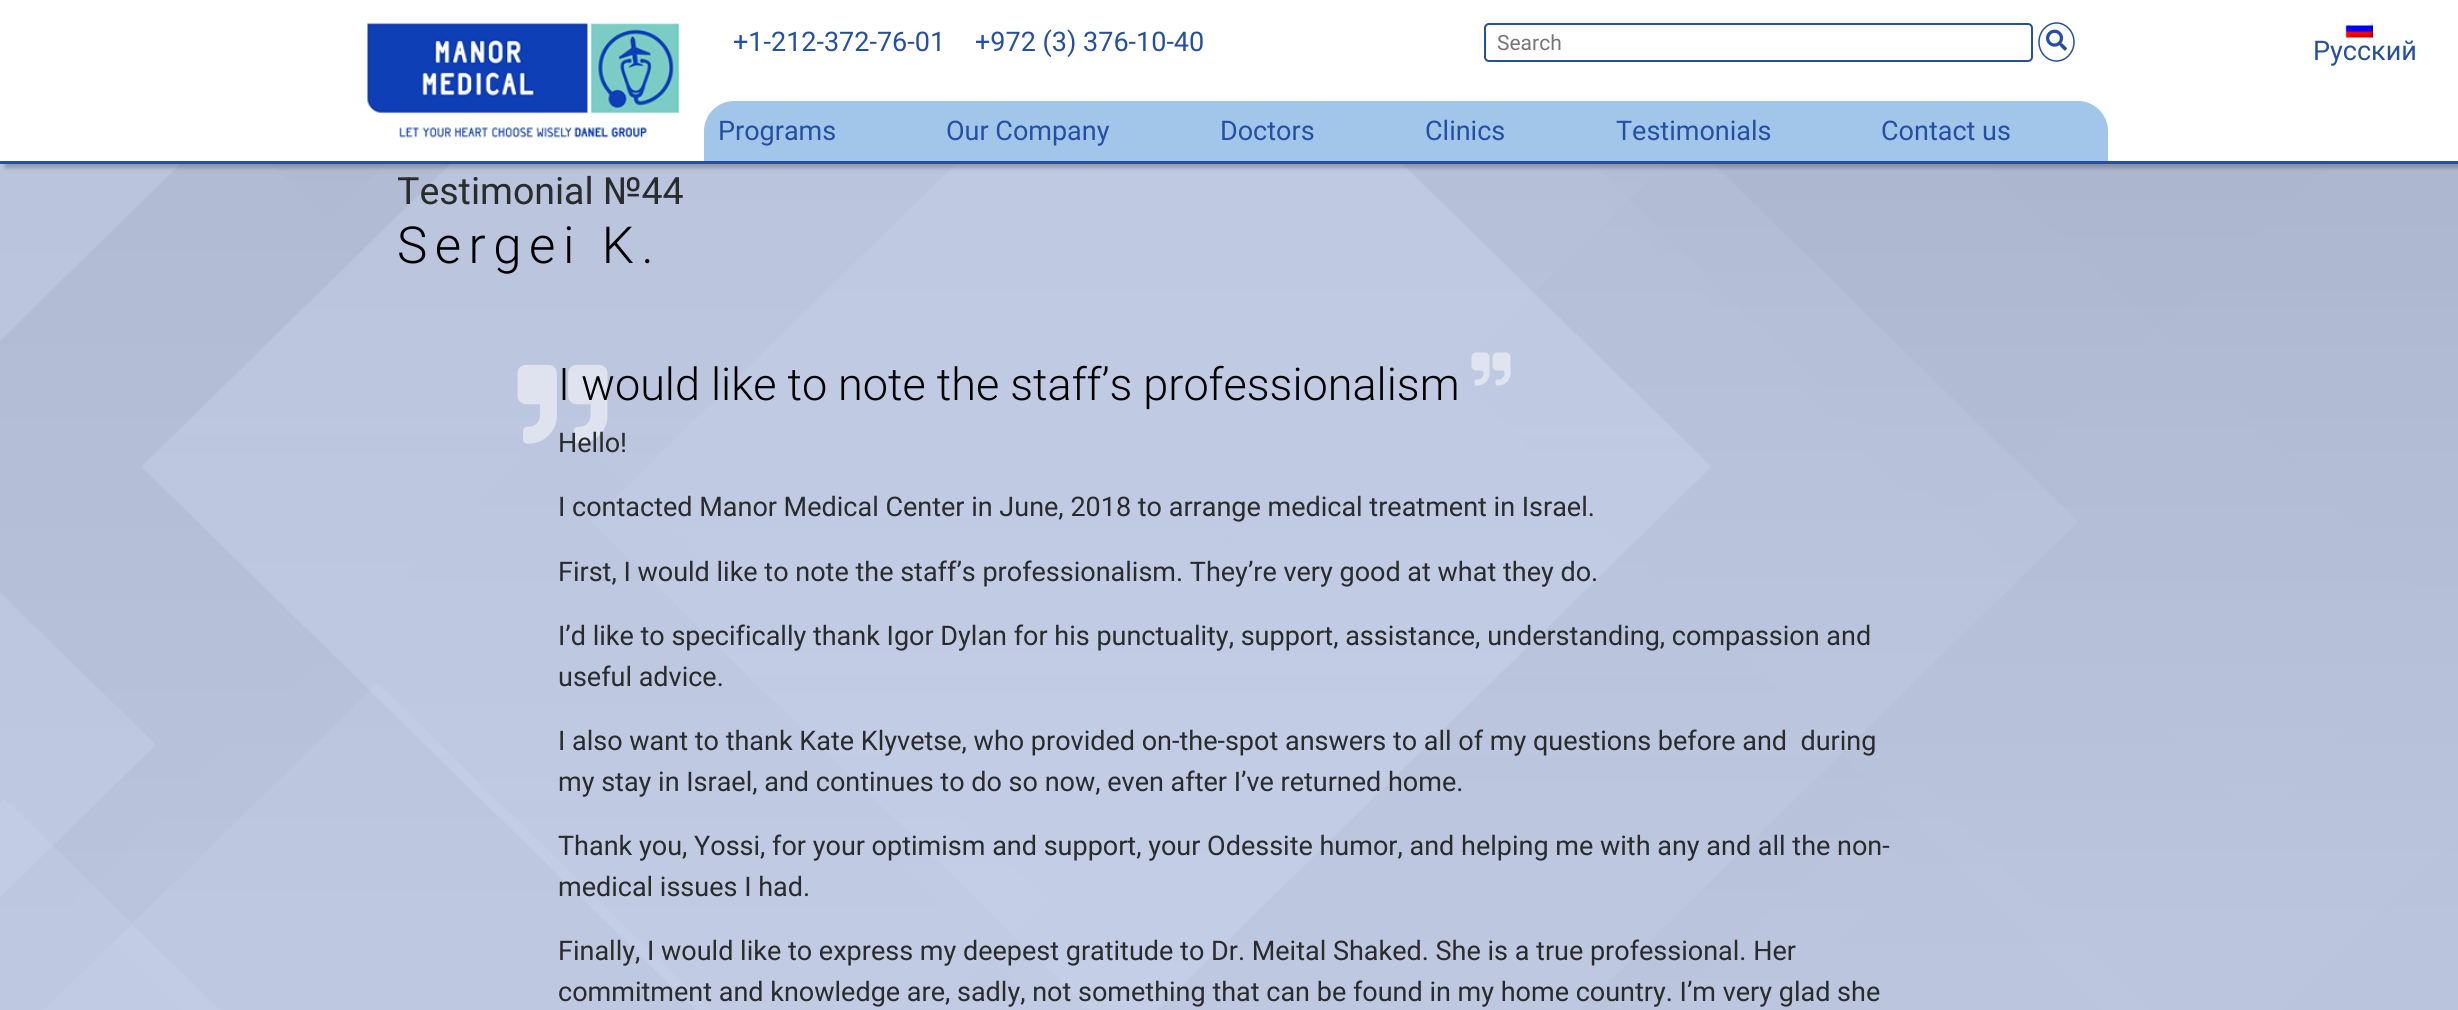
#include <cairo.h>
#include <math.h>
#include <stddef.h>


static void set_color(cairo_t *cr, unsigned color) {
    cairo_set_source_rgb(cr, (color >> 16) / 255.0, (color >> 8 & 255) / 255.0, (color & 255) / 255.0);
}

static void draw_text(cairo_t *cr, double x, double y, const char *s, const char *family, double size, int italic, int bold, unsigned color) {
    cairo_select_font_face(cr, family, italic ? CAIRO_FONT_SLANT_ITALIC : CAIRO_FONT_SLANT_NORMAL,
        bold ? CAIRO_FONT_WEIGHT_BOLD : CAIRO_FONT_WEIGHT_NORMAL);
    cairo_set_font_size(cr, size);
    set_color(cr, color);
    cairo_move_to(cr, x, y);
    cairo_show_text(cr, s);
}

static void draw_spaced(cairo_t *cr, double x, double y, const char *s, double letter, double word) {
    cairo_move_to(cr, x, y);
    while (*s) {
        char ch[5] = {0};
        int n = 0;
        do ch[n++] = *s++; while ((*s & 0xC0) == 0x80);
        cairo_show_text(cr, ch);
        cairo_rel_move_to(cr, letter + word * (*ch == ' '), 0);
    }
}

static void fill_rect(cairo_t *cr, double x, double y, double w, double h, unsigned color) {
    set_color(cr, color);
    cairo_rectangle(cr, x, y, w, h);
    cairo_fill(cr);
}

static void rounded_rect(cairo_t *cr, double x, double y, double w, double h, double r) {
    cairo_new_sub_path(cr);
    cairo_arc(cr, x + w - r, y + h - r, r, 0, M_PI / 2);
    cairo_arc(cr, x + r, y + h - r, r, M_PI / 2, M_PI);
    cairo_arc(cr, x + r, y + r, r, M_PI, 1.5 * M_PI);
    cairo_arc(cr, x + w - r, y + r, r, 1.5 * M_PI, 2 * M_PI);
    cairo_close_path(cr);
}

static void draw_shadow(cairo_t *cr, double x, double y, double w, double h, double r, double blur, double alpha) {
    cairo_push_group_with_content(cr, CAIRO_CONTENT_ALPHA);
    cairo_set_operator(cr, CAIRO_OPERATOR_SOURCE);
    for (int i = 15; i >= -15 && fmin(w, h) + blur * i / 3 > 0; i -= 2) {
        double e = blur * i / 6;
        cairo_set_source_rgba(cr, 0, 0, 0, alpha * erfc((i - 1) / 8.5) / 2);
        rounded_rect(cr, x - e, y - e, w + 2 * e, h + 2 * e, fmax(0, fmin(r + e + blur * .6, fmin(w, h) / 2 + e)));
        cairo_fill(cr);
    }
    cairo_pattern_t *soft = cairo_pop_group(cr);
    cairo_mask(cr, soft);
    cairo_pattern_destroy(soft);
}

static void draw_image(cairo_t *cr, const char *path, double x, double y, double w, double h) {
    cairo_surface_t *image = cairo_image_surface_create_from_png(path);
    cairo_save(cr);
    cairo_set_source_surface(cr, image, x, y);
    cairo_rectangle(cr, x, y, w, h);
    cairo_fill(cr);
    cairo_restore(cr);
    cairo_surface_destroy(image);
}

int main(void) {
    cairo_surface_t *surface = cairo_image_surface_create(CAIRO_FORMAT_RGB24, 2458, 1010);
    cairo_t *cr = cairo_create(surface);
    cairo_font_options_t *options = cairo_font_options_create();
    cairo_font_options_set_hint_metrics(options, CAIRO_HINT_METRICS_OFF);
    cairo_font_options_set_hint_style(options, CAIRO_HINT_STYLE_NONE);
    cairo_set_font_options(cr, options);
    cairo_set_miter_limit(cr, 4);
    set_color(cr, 0xCBDBFF);
    cairo_paint(cr);
    draw_image(cr, "assets/img1.png", 0, 164, 2458, 846);
    set_color(cr, 0x000000);
    draw_shadow(cr, 5, 5, 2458, 163, 0, 2, 0.22);
    fill_rect(cr, 0, 0, 2458, 161, 0xFFFFFF);
    fill_rect(cr, 0, 161, 2458, 3, 0x2550A2);
    draw_image(cr, "assets/img2.png", 367, 22, 313, 116);
    draw_text(cr, 733, 51, "+1-212-372-76-01", "Roboto", 27, 0, 0, 0x2550A2);
    draw_text(cr, 975, 51, "+972 (3) 376-10-40", "Roboto", 27, 0, 0, 0x2550A2);
    rounded_rect(cr, 1485, 24, 547, 37, 4);
    cairo_stroke(cr);
    draw_text(cr, 1497, 50, "Search", "Roboto", 21, 0, 0, 0x757575);
    cairo_new_path(cr);
    cairo_move_to(cr, 2056.5, 23);
    cairo_curve_to(cr, 2066, 23, 2074, 31.5, 2074, 42);
    cairo_curve_to(cr, 2074, 52.5, 2066, 61, 2056.5, 61);
    cairo_curve_to(cr, 2047, 61, 2039, 52.5, 2039, 42);
    cairo_curve_to(cr, 2039, 31.5, 2047, 23, 2056.5, 23);
    cairo_close_path(cr);
    set_color(cr, 0x2550A2);
    cairo_set_line_width(cr, 1.5);
    cairo_stroke(cr);
    draw_image(cr, "assets/img3.png", 2046, 29, 21, 22);
    set_color(cr, 0xA1C6EA);
    cairo_new_path(cr);
    cairo_move_to(cr, 734, 101);
    cairo_line_to(cr, 2078, 101);
    cairo_curve_to(cr, 2094.5, 101, 2108, 114.5, 2108, 131);
    cairo_line_to(cr, 2108, 161);
    cairo_line_to(cr, 704, 161);
    cairo_line_to(cr, 704, 131);
    cairo_curve_to(cr, 704, 114.5, 717.5, 101, 734, 101);
    cairo_close_path(cr);
    cairo_fill(cr);
    draw_image(cr, "assets/img4.png", 2345, 22, 28, 16);
    draw_text(cr, 2313, 60, "Русский", "Roboto", 27, 0, 0, 0x2550A2);
    draw_text(cr, 718, 140, "Programs", "Roboto", 27, 0, 0, 0x2550A2);
    draw_text(cr, 946, 140, "Our Company", "Roboto", 27, 0, 0, 0x2550A2);
    draw_text(cr, 1220, 140, "Doctors", "Roboto", 27, 0, 0, 0x2550A2);
    draw_text(cr, 1425, 140, "Clinics", "Roboto", 27, 0, 0, 0x2550A2);
    draw_text(cr, 1616, 140, "Testimonials", "Roboto", 27, 0, 0, 0x2550A2);
    draw_text(cr, 1881, 140, "Contact us", "Roboto", 27, 0, 0, 0x2550A2);
    cairo_save(cr);
    cairo_rectangle(cr, 398, 164, 1665, 57);
    cairo_clip(cr);
    draw_text(cr, 397, 204, "Testimonial №44", "Roboto", 37.5, 0, 0, 0x292B2C);
    cairo_restore(cr);
    cairo_select_font_face(cr, "Roboto Light", CAIRO_FONT_SLANT_NORMAL, CAIRO_FONT_WEIGHT_NORMAL);
    cairo_set_font_size(cr, 51);
    set_color(cr, 0x000000);
    draw_spaced(cr, 397, 263, "Sergei K.", 7.5, 0);
    draw_image(cr, "assets/img5.png", 517, 364, 91, 80);
    draw_text(cr, 558, 400, "I would like to note the staff’s professionalism", "Roboto Light", 45, 0, 0, 0x000000);
    draw_image(cr, "assets/img6.png", 1471, 352, 40, 34);
    draw_text(cr, 558, 452, "Hello!", "Roboto", 27, 0, 0, 0x292B2C);
    draw_text(cr, 558, 516, "I contacted Manor Medical Center in June, 2018 to arrange medical treatment in Israel.", "Roboto", 27, 0, 0, 0x292B2C);
    draw_text(cr, 558, 581, "First, I would like to note the staff’s professionalism. They’re very good at what they do.", "Roboto", 27, 0, 0, 0x292B2C);
    draw_text(cr, 558, 645, "I’d like to specifically thank Igor Dylan for his punctuality, support, assistance, understanding, compassion and", "Roboto", 27, 0, 0, 0x292B2C);
    draw_text(cr, 558, 686, "useful advice.", "Roboto", 27, 0, 0, 0x292B2C);
    draw_text(cr, 558, 750, "I also want to thank Kate Klyvetse, who provided on-the-spot answers to all of my questions before and  during", "Roboto", 27, 0, 0, 0x292B2C);
    draw_text(cr, 558, 791, "my stay in Israel, and continues to do so now, even after I’ve returned home.", "Roboto", 27, 0, 0, 0x292B2C);
    draw_text(cr, 558, 855, "Thank you, Yossi, for your optimism and support, your Odessite humor, and helping me with any and all the non-", "Roboto", 27, 0, 0, 0x292B2C);
    draw_text(cr, 558, 896, "medical issues I had.", "Roboto", 27, 0, 0, 0x292B2C);
    draw_text(cr, 558, 960, "Finally, I would like to express my deepest gratitude to Dr. Meital Shaked. She is a true professional. Her", "Roboto", 27, 0, 0, 0x292B2C);
    draw_text(cr, 558, 1001, "commitment and knowledge are, sadly, not something that can be found in my home country. I’m very glad she", "Roboto", 27, 0, 0, 0x292B2C);
    cairo_surface_write_to_png(surface, "output.png");
    cairo_font_options_destroy(options);
    cairo_destroy(cr);
    cairo_surface_destroy(surface);
    return 0;
}
